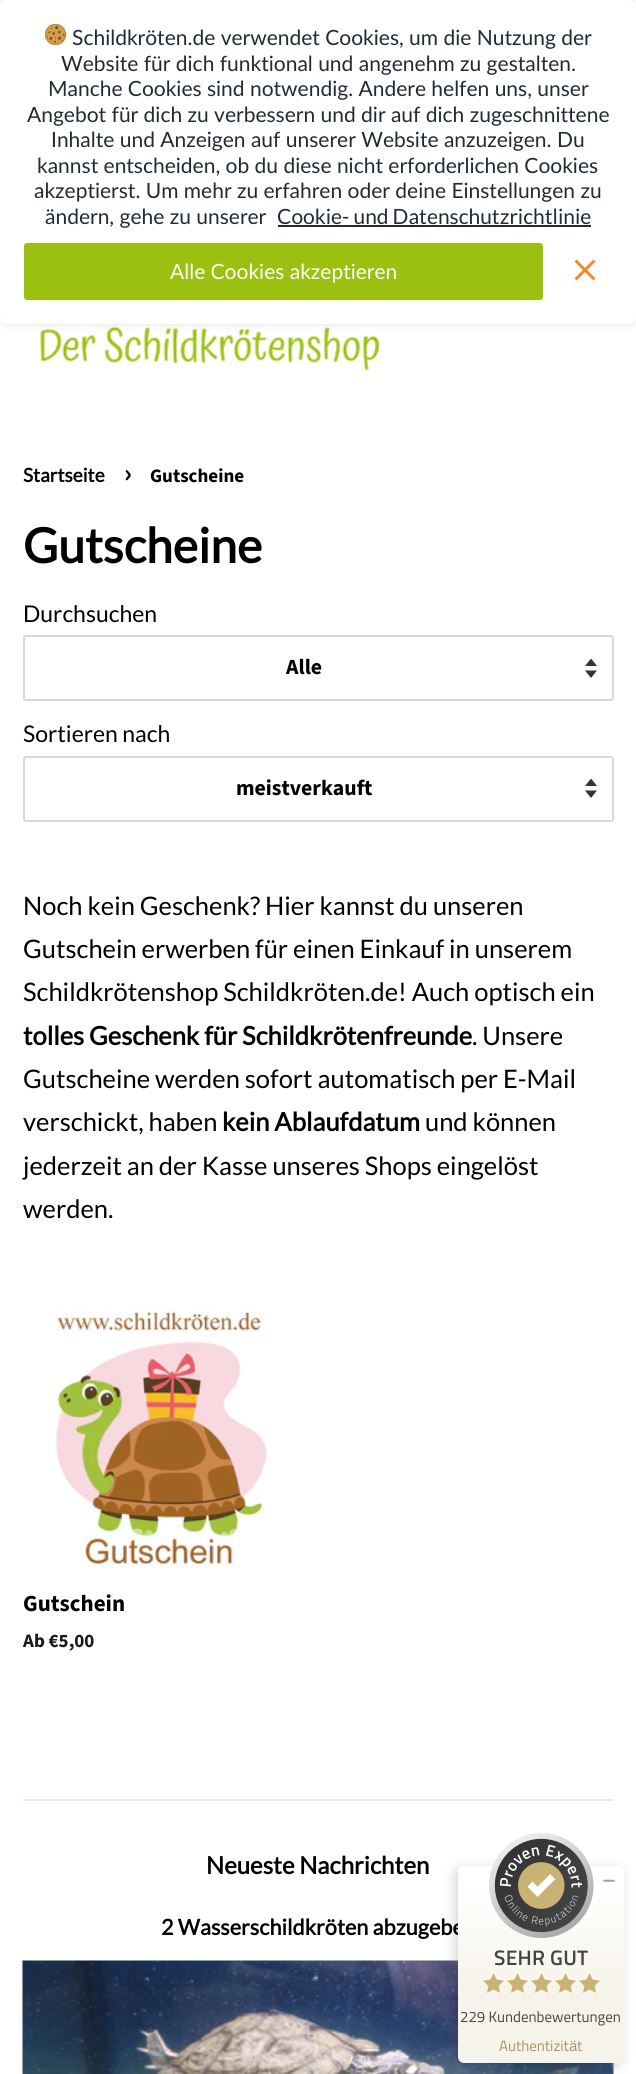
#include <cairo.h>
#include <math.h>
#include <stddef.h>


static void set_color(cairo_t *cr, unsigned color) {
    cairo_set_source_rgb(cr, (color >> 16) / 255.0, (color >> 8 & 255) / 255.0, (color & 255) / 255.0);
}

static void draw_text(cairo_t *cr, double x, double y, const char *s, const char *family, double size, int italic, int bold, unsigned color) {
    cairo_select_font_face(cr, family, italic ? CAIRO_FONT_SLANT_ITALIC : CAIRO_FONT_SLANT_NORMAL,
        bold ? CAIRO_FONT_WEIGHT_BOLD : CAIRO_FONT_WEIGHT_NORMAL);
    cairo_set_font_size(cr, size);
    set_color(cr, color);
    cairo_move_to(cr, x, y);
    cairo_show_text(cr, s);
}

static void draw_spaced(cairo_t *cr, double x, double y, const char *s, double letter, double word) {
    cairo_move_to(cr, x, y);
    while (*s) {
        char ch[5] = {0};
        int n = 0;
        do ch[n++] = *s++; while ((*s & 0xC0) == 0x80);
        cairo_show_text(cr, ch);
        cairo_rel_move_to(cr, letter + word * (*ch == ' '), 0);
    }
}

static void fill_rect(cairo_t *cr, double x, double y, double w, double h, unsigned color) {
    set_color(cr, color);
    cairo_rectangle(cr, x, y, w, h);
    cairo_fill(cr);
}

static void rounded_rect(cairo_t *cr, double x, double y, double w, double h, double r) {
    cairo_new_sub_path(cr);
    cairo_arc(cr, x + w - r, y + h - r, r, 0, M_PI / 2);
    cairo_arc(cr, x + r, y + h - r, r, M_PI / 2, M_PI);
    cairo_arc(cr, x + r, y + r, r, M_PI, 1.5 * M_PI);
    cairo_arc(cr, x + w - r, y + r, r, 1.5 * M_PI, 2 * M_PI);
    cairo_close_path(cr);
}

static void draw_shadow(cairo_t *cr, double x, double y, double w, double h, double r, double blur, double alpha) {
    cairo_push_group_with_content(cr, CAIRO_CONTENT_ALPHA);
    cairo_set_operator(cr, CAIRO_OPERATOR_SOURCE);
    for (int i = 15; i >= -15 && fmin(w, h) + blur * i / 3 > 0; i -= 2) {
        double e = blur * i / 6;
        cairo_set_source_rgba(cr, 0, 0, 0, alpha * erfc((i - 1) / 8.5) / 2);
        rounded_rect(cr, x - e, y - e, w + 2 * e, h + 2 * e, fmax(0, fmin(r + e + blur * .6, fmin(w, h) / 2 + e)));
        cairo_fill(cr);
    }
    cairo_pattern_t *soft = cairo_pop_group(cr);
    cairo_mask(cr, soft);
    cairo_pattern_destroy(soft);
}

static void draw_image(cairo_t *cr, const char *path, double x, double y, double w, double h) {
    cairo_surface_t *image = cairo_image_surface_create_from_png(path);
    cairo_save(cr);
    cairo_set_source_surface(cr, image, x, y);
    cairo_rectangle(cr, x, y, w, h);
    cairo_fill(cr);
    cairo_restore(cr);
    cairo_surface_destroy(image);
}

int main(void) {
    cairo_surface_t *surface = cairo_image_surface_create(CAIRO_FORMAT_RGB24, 636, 2074);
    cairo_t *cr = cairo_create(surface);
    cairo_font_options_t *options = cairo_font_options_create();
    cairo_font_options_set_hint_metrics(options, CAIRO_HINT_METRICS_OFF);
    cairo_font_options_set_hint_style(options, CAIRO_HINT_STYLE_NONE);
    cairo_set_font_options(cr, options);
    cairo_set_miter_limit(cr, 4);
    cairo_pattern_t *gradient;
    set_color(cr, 0xFFFFFF);
    cairo_paint(cr);
    draw_image(cr, "assets/img3.png", 40, 326, 340, 45);
    cairo_save(cr);
    cairo_set_fill_rule(cr, CAIRO_FILL_RULE_EVEN_ODD);
    cairo_new_path(cr);
    cairo_move_to(cr, 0, 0);
    cairo_line_to(cr, 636, 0);
    cairo_line_to(cr, 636, 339);
    cairo_line_to(cr, 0, 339);
    cairo_close_path(cr);
    cairo_move_to(cr, 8, 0);
    cairo_line_to(cr, 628, 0);
    cairo_curve_to(cr, 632.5, 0, 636, 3.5, 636, 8);
    cairo_line_to(cr, 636, 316);
    cairo_curve_to(cr, 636, 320.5, 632.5, 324, 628, 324);
    cairo_line_to(cr, 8, 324);
    cairo_curve_to(cr, 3.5, 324, 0, 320.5, 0, 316);
    cairo_line_to(cr, 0, 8);
    cairo_curve_to(cr, 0, 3.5, 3.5, 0, 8, 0);
    cairo_close_path(cr);
    cairo_clip(cr);
    set_color(cr, 0x000000);
    draw_shadow(cr, 0, 0, 636, 324, 8, 4.5, 0.12);
    cairo_restore(cr);
    draw_image(cr, "assets/img1.png", 45, 24, 22, 21);
    draw_text(cr, 72, 45, "Schildkröten.de verwendet Cookies, um die Nutzung der", "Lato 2", 21, 0, 0, 0x212B36);
    draw_text(cr, 61, 71, "Website für dich funktional und angenehm zu gestalten.", "Lato 2", 21, 0, 0, 0x212B36);
    draw_text(cr, 48, 96, "Manche Cookies sind notwendig. Andere helfen uns, unser", "Lato 2", 21, 0, 0, 0x212B36);
    draw_text(cr, 27, 122, "Angebot für dich zu verbessern und dir auf dich zugeschnittene", "Lato 2", 21, 0, 0, 0x212B36);
    draw_text(cr, 51, 147, "Inhalte und Anzeigen auf unserer Website anzuzeigen. Du", "Lato 2", 21, 0, 0, 0x212B36);
    draw_text(cr, 37, 173, "kannst entscheiden, ob du diese nicht erforderlichen Cookies", "Lato 2", 21, 0, 0, 0x212B36);
    draw_text(cr, 34, 198, "akzeptierst. Um mehr zu erfahren oder deine Einstellungen zu", "Lato 2", 21, 0, 0, 0x212B36);
    draw_text(cr, 45, 224, "ändern, gehe zu unserer", "Lato 2", 21, 0, 0, 0x212B36);
    draw_text(cr, 277, 224, "Cookie- und Datenschutzrichtlinie", "Lato", 21, 0, 0, 0x212B36);
    fill_rect(cr, 278, 225, 313, 2, 0x212B36);
    set_color(cr, 0x9CC00F);
    rounded_rect(cr, 24, 243, 519, 57, 3);
    cairo_fill(cr);
    draw_text(cr, 170, 279, "Alle Cookies akzeptieren", "Lato 2", 21, 0, 0, 0xFFFFFF);
    draw_image(cr, "assets/img2.png", 574, 259, 22, 22);
    draw_text(cr, 23, 482, "Startseite", "Lato", 19, 0, 1, 0x000000);
    draw_text(cr, 124, 482, "›", "Source Sans Pro", 27, 0, 1, 0x000000);
    draw_text(cr, 150, 482, "Gutscheine", "Source Sans Pro", 19, 0, 1, 0x000000);
    draw_text(cr, 23, 563, "Gutscheine", "Lato", 48, 0, 1, 0x000000);
    draw_text(cr, 23, 622, "Durchsuchen", "Lato", 23, 0, 0, 0x000000);
    draw_image(cr, "assets/img4.png", 585, 659, 12, 19);
    rounded_rect(cr, 24, 636, 589, 64, 2);
    set_color(cr, 0xD9D9D9);
    cairo_stroke(cr);
    draw_text(cr, 286, 674, "Alle", "Source Sans Pro", 21.7, 0, 1, 0x000000);
    draw_text(cr, 23, 742, "Sortieren nach", "Lato", 23, 0, 0, 0x000000);
    draw_image(cr, "assets/img4.png", 585, 779, 12, 19);
    rounded_rect(cr, 24, 757, 589, 64, 2);
    set_color(cr, 0xD9D9D9);
    cairo_stroke(cr);
    draw_text(cr, 236, 795, "meistverkauft", "Source Sans Pro", 21.7, 0, 1, 0x000000);
    draw_text(cr, 23, 915, "Noch kein Geschenk? Hier kannst du unseren", "Lato", 25.5, 0, 0, 0x000000);
    draw_text(cr, 23, 958, "Gutschein erwerben für einen Einkauf in unserem", "Lato", 25.5, 0, 0, 0x000000);
    draw_text(cr, 23, 1001, "Schildkrötenshop Schildkröten.de! Auch optisch ein", "Lato", 25.5, 0, 0, 0x000000);
    draw_text(cr, 23, 1045, "tolles Geschenk für Schildkrötenfreunde", "Lato", 25.5, 0, 1, 0x000000);
    draw_text(cr, 472, 1045, ". Unsere", "Lato", 25.5, 0, 0, 0x000000);
    draw_text(cr, 23, 1088, "Gutscheine werden sofort automatisch per E-Mail", "Lato", 25.5, 0, 0, 0x000000);
    draw_text(cr, 23, 1131, "verschickt, haben", "Lato", 25.5, 0, 0, 0x000000);
    draw_text(cr, 222, 1131, "kein Ablaufdatum", "Lato", 25.5, 0, 1, 0x000000);
    draw_text(cr, 425, 1131, "und können", "Lato", 25.5, 0, 0, 0x000000);
    draw_text(cr, 23, 1175, "jederzeit an der Kasse unseres Shops eingelöst", "Lato", 25.5, 0, 0, 0x000000);
    draw_text(cr, 23, 1218, "werden.", "Lato", 25.5, 0, 0, 0x000000);
    draw_image(cr, "assets/img5.png", 53, 1310, 218, 259);
    draw_text(cr, 23, 1611, "Gutschein", "Source Sans Pro", 23, 0, 1, 0x000000);
    draw_text(cr, 23, 1647, "Ab €5,00", "Source Sans Pro", 19, 0, 1, 0x1A1A1A);
    fill_rect(cr, 23, 1799, 591, 2, 0xEBEBEB);
    draw_text(cr, 206, 1874, "Neueste Nachrichten", "Lato", 24, 0, 1, 0x000000);
    draw_text(cr, 161, 1935, "2 Wasserschildkröten abzugebe", "Lato", 21.7, 0, 1, 0x000000);
    draw_image(cr, "assets/img6.png", 22, 1960, 592, 114);
    set_color(cr, 0x000000);
    draw_shadow(cr, 458, 1872, 160, 191, 3, 7.5, 0.25);
    gradient = cairo_pattern_create_linear(541, 2063, 541, 1866);
    cairo_pattern_add_color_stop_rgba(gradient, 0.37, 0.965, 0.953, 0.918, 1);
    cairo_pattern_add_color_stop_rgba(gradient, 0.9, 1, 1, 1, 1);
    cairo_set_source(cr, gradient);
    cairo_pattern_destroy(gradient);
    rounded_rect(cr, 458, 1866, 166, 197, 6);
    cairo_fill(cr);
    draw_image(cr, "assets/img7.png", 489, 1833, 105, 105);
    draw_image(cr, "assets/img8.png", 602, 1879, 14, 3);
    cairo_select_font_face(cr, "Titillium Web SemiBold", CAIRO_FONT_SLANT_NORMAL, CAIRO_FONT_WEIGHT_NORMAL);
    cairo_set_font_size(cr, 21);
    set_color(cr, 0x444444);
    draw_spaced(cr, 494, 1965, "SEHR GUT", 0.25, 0);
    draw_image(cr, "assets/img9.png", 483, 1973, 21, 20);
    draw_image(cr, "assets/img9.png", 507, 1973, 21, 20);
    draw_image(cr, "assets/img9.png", 531, 1973, 21, 20);
    draw_image(cr, "assets/img9.png", 555, 1973, 21, 20);
    draw_image(cr, "assets/img9.png", 579, 1973, 21, 20);
    draw_text(cr, 460, 2022, "229 Kundenbewertungen", "Titillium Web", 15, 0, 0, 0x444444);
    draw_text(cr, 499, 2051, "Authentizit", "Titillium Web", 15, 0, 0, 0xA79563);
    draw_text(cr, 569, 2051, "ä", "Liberation Sans", 15, 0, 0, 0xA79563);
    draw_text(cr, 577, 2051, "t", "Titillium Web", 15, 0, 0, 0xA79563);
    cairo_surface_write_to_png(surface, "output.png");
    cairo_font_options_destroy(options);
    cairo_destroy(cr);
    cairo_surface_destroy(surface);
    return 0;
}
